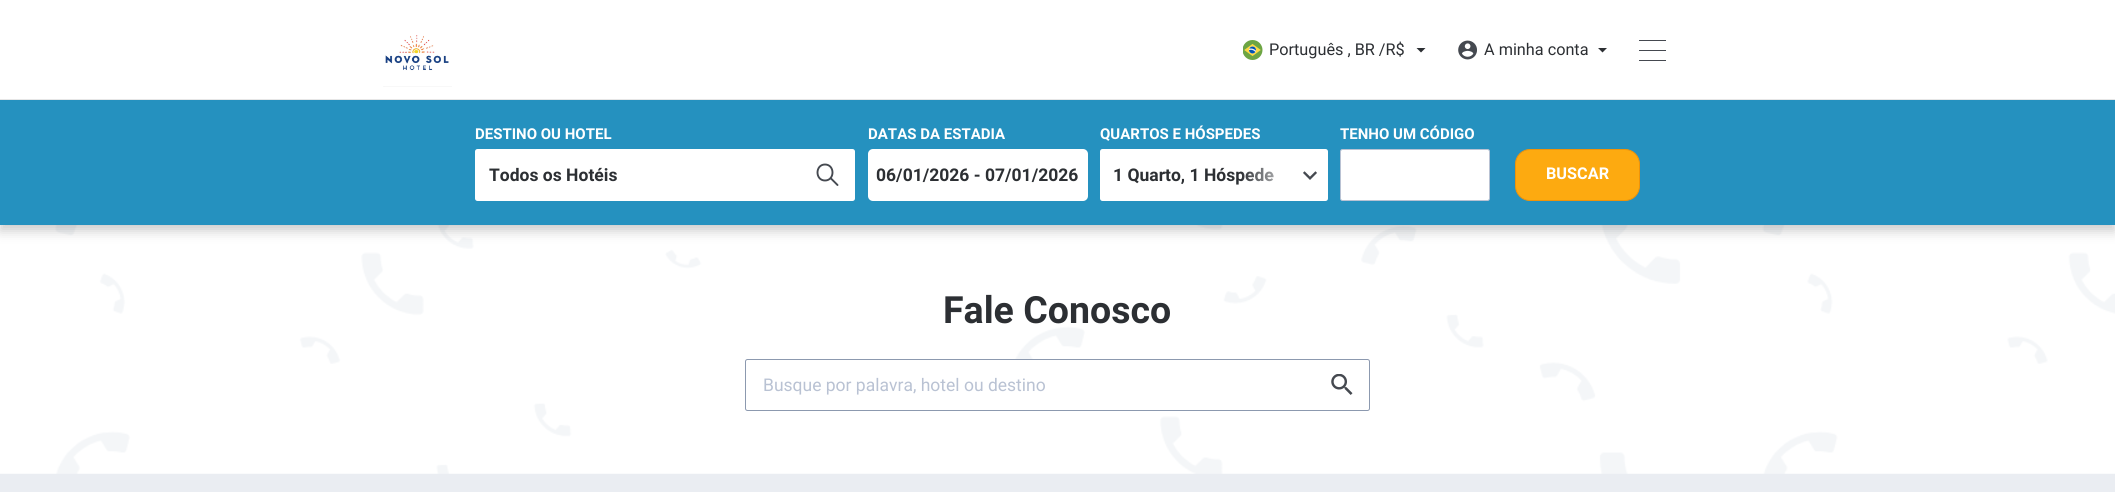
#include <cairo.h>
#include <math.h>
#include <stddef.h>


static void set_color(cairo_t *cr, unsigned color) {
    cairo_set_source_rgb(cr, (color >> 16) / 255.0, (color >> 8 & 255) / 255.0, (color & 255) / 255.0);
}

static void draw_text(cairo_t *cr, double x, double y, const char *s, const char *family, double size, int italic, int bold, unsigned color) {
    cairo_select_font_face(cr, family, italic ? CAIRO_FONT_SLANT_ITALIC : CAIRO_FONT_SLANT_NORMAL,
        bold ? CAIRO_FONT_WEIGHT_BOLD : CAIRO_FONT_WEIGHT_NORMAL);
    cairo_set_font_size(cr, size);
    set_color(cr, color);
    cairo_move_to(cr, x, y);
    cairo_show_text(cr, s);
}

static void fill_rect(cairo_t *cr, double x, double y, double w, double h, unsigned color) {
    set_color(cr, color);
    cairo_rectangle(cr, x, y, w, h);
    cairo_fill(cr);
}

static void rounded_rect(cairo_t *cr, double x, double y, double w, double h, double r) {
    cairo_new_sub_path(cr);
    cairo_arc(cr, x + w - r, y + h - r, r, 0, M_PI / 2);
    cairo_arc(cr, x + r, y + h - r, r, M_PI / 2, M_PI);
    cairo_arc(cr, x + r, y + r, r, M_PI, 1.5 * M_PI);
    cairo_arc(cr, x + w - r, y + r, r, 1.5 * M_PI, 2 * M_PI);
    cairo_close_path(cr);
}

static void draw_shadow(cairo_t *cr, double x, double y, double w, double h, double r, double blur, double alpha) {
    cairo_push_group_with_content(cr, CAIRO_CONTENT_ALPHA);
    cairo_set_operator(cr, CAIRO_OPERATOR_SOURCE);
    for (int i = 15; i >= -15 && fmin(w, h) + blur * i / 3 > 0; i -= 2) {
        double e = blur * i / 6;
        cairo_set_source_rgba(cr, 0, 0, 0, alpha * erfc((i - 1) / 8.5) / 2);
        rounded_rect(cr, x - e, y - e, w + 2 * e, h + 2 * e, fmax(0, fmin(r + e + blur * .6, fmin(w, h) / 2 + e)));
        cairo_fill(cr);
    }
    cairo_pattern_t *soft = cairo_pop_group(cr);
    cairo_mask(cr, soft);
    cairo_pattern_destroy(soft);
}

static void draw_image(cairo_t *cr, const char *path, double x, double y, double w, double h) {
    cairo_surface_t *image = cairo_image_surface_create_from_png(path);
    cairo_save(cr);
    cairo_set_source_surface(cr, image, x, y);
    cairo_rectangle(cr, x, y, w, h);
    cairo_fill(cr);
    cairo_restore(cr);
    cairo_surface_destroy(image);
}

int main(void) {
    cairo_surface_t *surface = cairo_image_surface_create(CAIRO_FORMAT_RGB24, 2115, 492);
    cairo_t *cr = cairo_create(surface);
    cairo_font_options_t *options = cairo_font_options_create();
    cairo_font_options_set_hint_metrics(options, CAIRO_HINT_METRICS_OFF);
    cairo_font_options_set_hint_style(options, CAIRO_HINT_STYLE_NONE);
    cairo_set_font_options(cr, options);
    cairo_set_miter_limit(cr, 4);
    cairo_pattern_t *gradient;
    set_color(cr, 0xEAEDF2);
    cairo_paint(cr);
    draw_image(cr, "assets/img5.png", 0, 225, 2115, 249);
    set_color(cr, 0x000000);
    draw_shadow(cr, 0, 106, 2115, 125, 0, 6, 0.2);
    fill_rect(cr, 0, 0, 2115, 99, 0xFFFFFF);
    fill_rect(cr, 0, 99, 2115, 1, 0xE6E6E6);
    draw_image(cr, "assets/img1.png", 383, 35, 69, 52);
    cairo_save(cr);
    cairo_rectangle(cr, 1416, 48, 10, 5);
    cairo_clip(cr);
    set_color(cr, 0x2C2F33);
    cairo_new_path(cr);
    cairo_move_to(cr, 1426, 47.5);
    cairo_line_to(cr, 1421, 52.5);
    cairo_line_to(cr, 1416, 47.5);
    cairo_close_path(cr);
    cairo_fill(cr);
    cairo_restore(cr);
    draw_image(cr, "assets/img2.png", 1243, 40, 20, 20);
    draw_text(cr, 1269, 55, "Português , BR /R$", "Roboto", 16.25, 0, 0, 0x2C2F33);
    cairo_save(cr);
    cairo_rectangle(cr, 1598, 48, 10, 5);
    cairo_clip(cr);
    cairo_new_path(cr);
    cairo_move_to(cr, 1607.5, 47.5);
    cairo_line_to(cr, 1602.5, 52.5);
    cairo_line_to(cr, 1597.5, 47.5);
    cairo_close_path(cr);
    cairo_fill(cr);
    cairo_restore(cr);
    draw_image(cr, "assets/img3.png", 1458, 40, 19, 20);
    draw_text(cr, 1484, 55, "A minha conta", "Roboto", 16.25, 0, 0, 0x2C2F33);
    fill_rect(cr, 1639, 40, 27, 1, 0x454950);
    fill_rect(cr, 1639, 50, 27, 1, 0x454950);
    fill_rect(cr, 1639, 60, 27, 1, 0x454950);
    fill_rect(cr, 0, 100, 2115, 125, 0x2591BF);
    draw_text(cr, 475, 139, "DESTINO OU HOTEL", "Roboto", 15, 0, 1, 0xFFFFFF);
    rounded_rect(cr, 475, 149, 380, 52, 2.5);
    cairo_fill(cr);
    draw_text(cr, 489, 181, "Todos os Hotéis", "Roboto", 17.5, 0, 1, 0x2C2F33);
    cairo_new_path(cr);
    cairo_move_to(cr, 825, 180.5);
    cairo_curve_to(cr, 835, 180.5, 835, 164.5, 825, 164.5);
    cairo_curve_to(cr, 815, 164.5, 815, 180.5, 825, 180.5);
    cairo_close_path(cr);
    cairo_move_to(cr, 830.5, 178);
    cairo_line_to(cr, 837.5, 185);
    set_color(cr, 0x454950);
    cairo_set_line_width(cr, 1.9);
    cairo_set_line_cap(cr, CAIRO_LINE_CAP_ROUND);
    cairo_stroke(cr);
    draw_text(cr, 868, 139, "DATAS DA ESTADIA", "Roboto", 15, 0, 1, 0xFFFFFF);
    rounded_rect(cr, 868, 149, 220, 52, 5);
    cairo_fill(cr);
    draw_text(cr, 876, 181, "06/01/2026 - 07/01/2026", "Roboto", 17.5, 0, 1, 0x2C2F33);
    draw_text(cr, 1100, 139, "QUARTOS E HÓSPEDES", "Roboto", 15, 0, 1, 0xFFFFFF);
    rounded_rect(cr, 1100, 149, 228, 52, 2.5);
    cairo_fill(cr);
    draw_image(cr, "assets/img4.png", 1303, 171, 14, 9);
    draw_text(cr, 1113, 181, "1 Quarto, 1 Hóspede", "Roboto", 17.5, 0, 1, 0x2C2F33);
    gradient = cairo_pattern_create_linear(1240, 175, 1303, 175);
    cairo_pattern_add_color_stop_rgba(gradient, 0, 1, 1, 1, 0);
    cairo_pattern_add_color_stop_rgba(gradient, 1, 1, 1, 1, 1);
    cairo_set_source(cr, gradient);
    cairo_pattern_destroy(gradient);
    cairo_rectangle(cr, 1241, 167, 32, 15);
    cairo_fill(cr);
    draw_text(cr, 1340, 139, "TENHO UM CÓDIGO", "Roboto", 15, 0, 1, 0xFFFFFF);
    rounded_rect(cr, 1340.5, 149.5, 149, 51, 2);
    cairo_fill_preserve(cr);
    set_color(cr, 0xB9C2D3);
    cairo_set_line_width(cr, 1);
    cairo_set_line_cap(cr, CAIRO_LINE_CAP_BUTT);
    cairo_stroke(cr);
    set_color(cr, 0xFDAA10);
    rounded_rect(cr, 1515.5, 149.5, 124, 51, 14.5);
    cairo_fill_preserve(cr);
    set_color(cr, 0xF09308);
    cairo_stroke(cr);
    draw_text(cr, 1546, 179, "BUSCAR", "Roboto", 16.25, 0, 1, 0xFFFFFF);
    draw_text(cr, 943, 323, "Fale Conosco", "Roboto", 37.5, 0, 1, 0x2C2F33);
    set_color(cr, 0xFFFFFF);
    rounded_rect(cr, 745, 359, 625, 52, 2.5);
    cairo_fill(cr);
    draw_image(cr, "assets/img6.png", 1331, 374, 22, 21);
    rounded_rect(cr, 745.5, 359.5, 624, 51, 2);
    set_color(cr, 0x8C99AF);
    cairo_stroke(cr);
    draw_text(cr, 763, 391, "Busque por palavra, hotel ou destino", "Roboto", 17.5, 0, 0, 0xB9C2D3);
    cairo_surface_write_to_png(surface, "output.png");
    cairo_font_options_destroy(options);
    cairo_destroy(cr);
    cairo_surface_destroy(surface);
    return 0;
}
